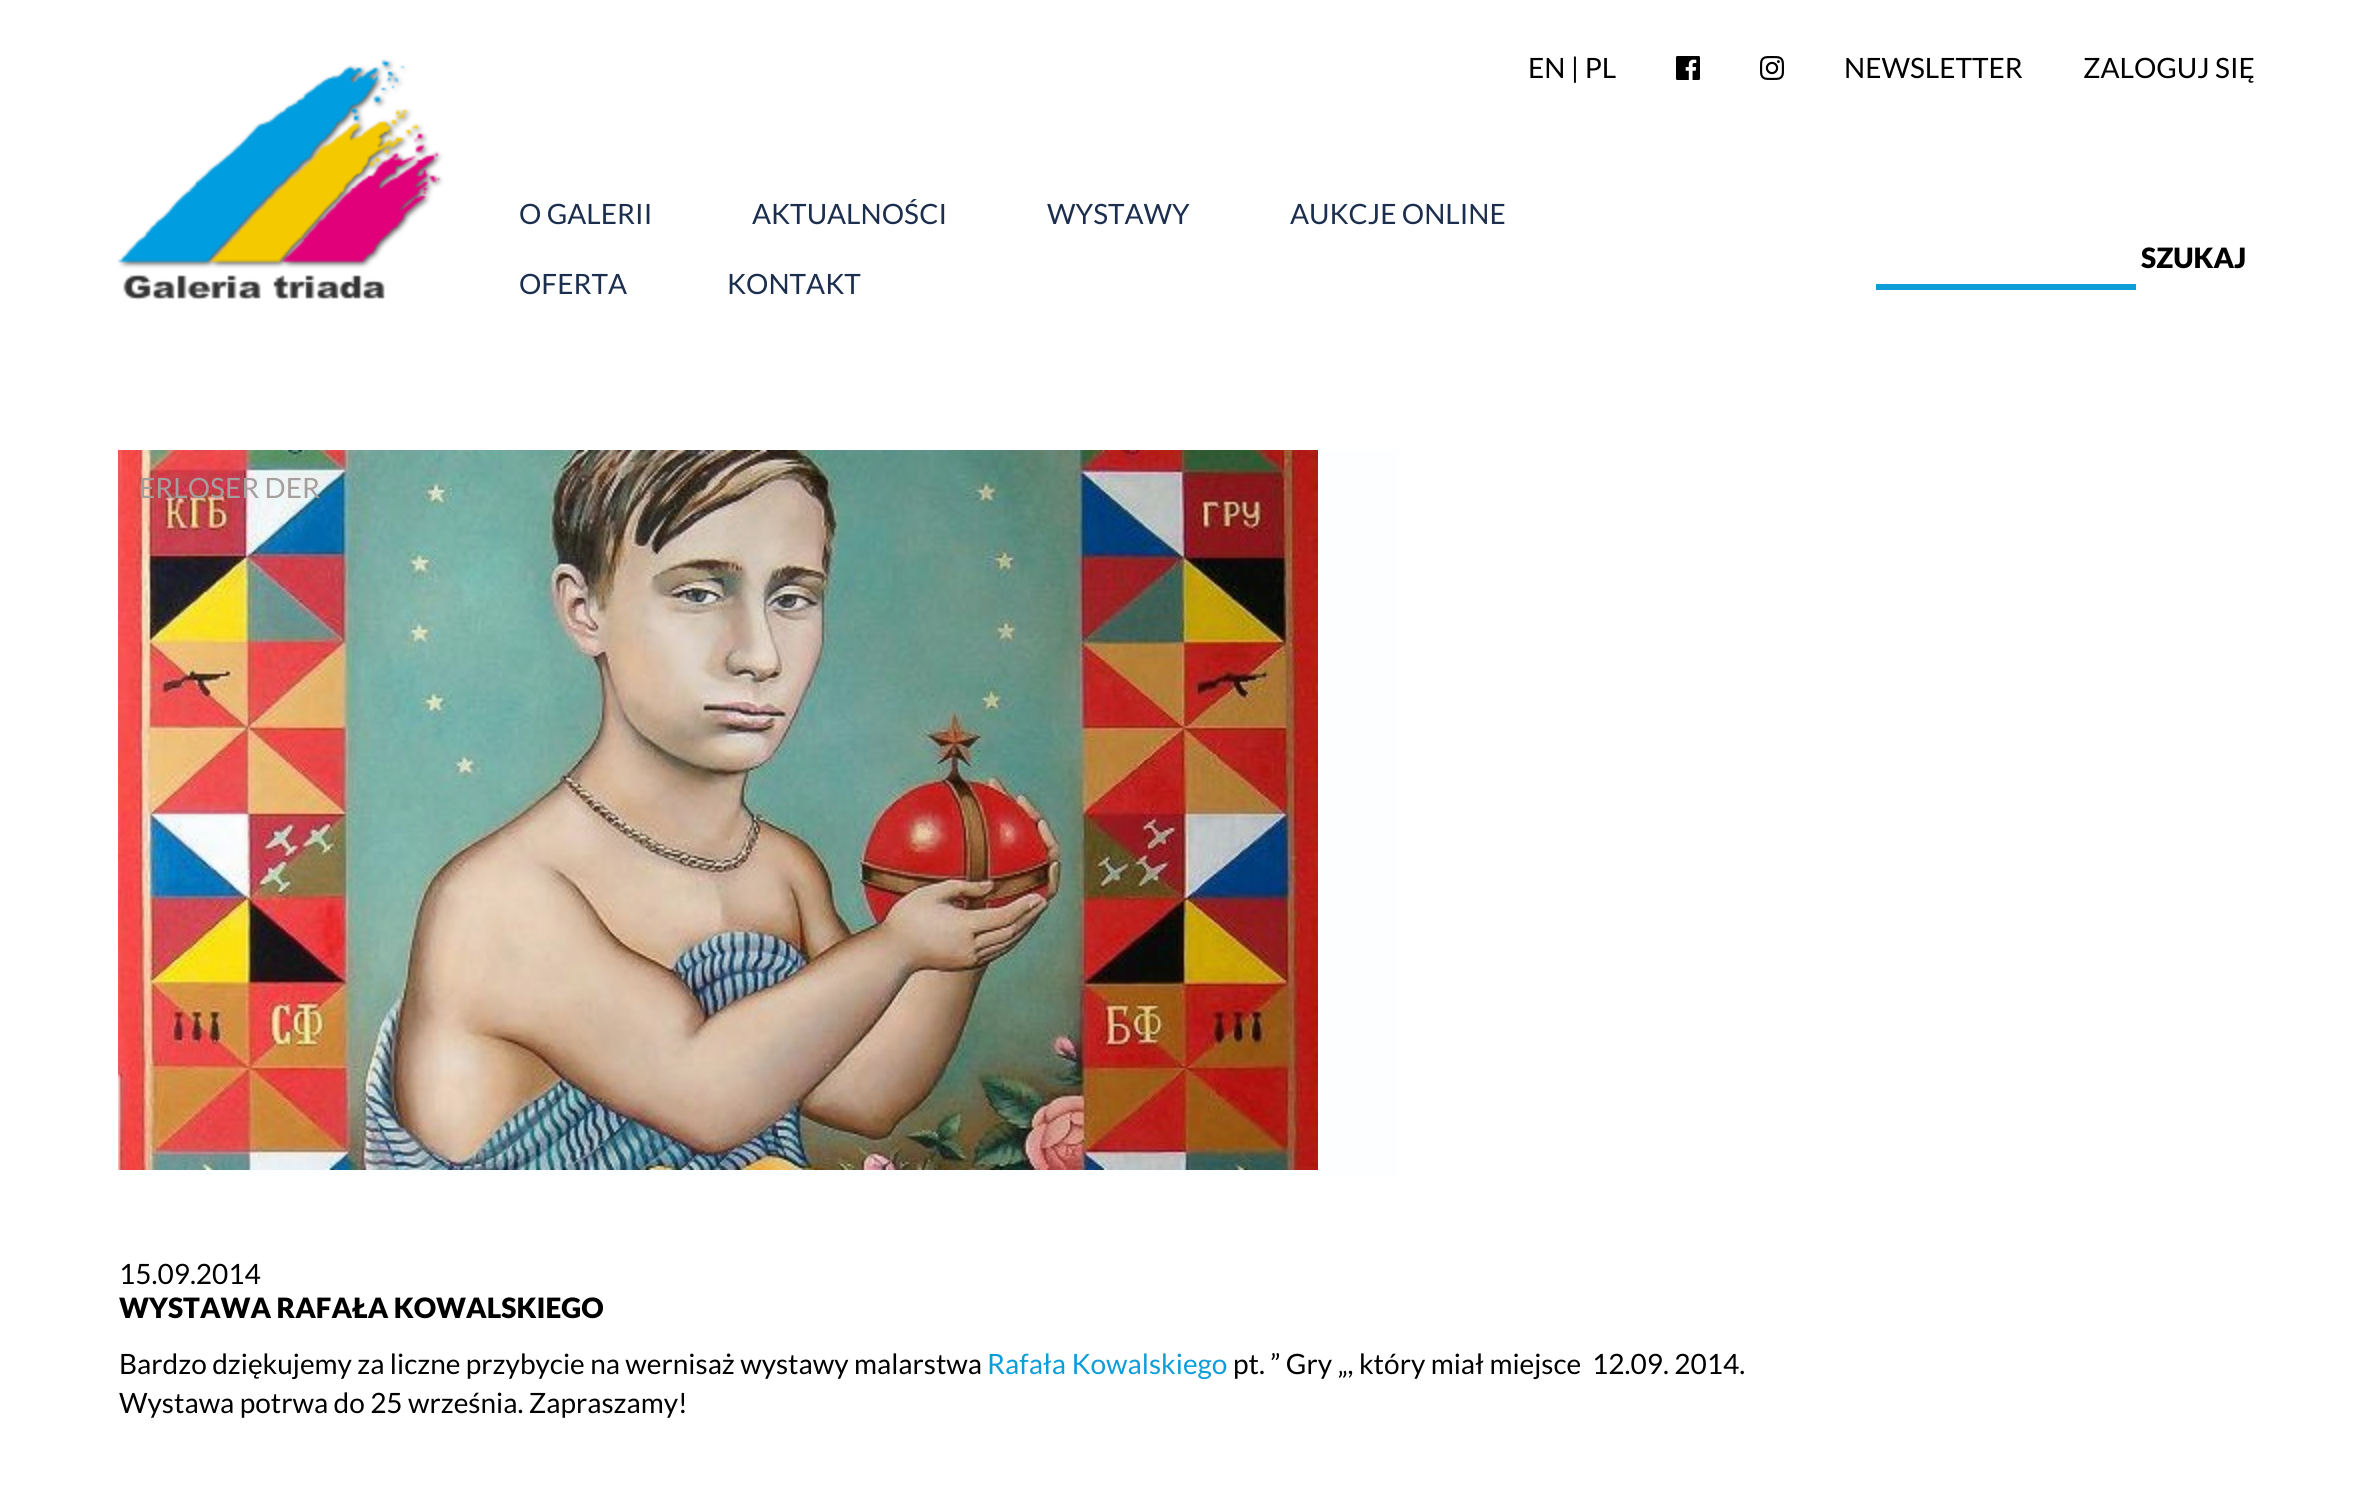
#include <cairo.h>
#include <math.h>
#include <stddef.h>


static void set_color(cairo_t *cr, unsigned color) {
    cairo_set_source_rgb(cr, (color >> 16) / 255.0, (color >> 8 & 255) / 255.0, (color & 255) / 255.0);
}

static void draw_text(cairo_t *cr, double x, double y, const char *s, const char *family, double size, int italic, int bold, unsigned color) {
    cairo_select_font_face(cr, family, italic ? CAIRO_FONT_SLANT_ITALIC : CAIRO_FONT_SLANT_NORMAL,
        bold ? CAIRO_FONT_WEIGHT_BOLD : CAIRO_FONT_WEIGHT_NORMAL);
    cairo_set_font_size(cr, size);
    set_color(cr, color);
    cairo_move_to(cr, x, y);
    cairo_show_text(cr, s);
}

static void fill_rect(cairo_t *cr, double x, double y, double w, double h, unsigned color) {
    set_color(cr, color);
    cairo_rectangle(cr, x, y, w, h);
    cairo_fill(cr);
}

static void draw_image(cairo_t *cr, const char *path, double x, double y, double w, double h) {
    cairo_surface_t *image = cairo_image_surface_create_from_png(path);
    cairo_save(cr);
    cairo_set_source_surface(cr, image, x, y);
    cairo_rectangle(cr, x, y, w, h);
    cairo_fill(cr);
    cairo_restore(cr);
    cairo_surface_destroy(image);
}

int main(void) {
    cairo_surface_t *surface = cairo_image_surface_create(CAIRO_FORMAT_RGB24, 2374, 1505);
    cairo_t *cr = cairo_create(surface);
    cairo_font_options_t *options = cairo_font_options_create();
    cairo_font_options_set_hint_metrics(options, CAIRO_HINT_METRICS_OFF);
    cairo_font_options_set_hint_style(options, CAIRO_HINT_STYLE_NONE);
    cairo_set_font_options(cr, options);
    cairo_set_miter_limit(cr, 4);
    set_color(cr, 0xFFFFFF);
    cairo_paint(cr);
    fill_rect(cr, 118, 450, 1280, 726, 0xFCFEFF);
    draw_image(cr, "assets/img1.png", 118, 59, 326, 241);
    draw_text(cr, 1528, 78, "EN | PL", "Lato", 28, 0, 0, 0x000000);
    draw_image(cr, "assets/img2.png", 1676, 56, 24, 24);
    draw_image(cr, "assets/img3.png", 1760, 56, 24, 24);
    draw_text(cr, 1844, 78, "NEWSLETTER", "Lato", 28, 0, 0, 0x000000);
    draw_text(cr, 2083, 78, "ZALOGUJ SIĘ", "Lato", 28, 0, 0, 0x000000);
    draw_text(cr, 519, 224, "O GALERII", "Lato", 28, 0, 0, 0x1C2E4E);
    draw_text(cr, 752, 224, "AKTUALNOŚCI", "Lato", 28, 0, 0, 0x1C2E4E);
    draw_text(cr, 1047, 224, "WYSTAWY", "Lato", 28, 0, 0, 0x1C2E4E);
    draw_text(cr, 1290, 224, "AUKCJE ONLINE", "Lato", 28, 0, 0, 0x1C2E4E);
    draw_text(cr, 519, 294, "OFERTA", "Lato", 28, 0, 0, 0x1C2E4E);
    draw_text(cr, 727, 294, "KONTAKT", "Lato", 28, 0, 0, 0x1C2E4E);
    draw_text(cr, 2141, 268, "SZUKAJ", "Lato Black", 28, 0, 0, 0x000000);
    fill_rect(cr, 1876, 284, 260, 6, 0x0D9DD8);
    draw_image(cr, "assets/img4.png", 118, 450, 1200, 720);
    draw_text(cr, 139, 498, "ERLOSER DER", "Lato", 28, 0, 0, 0xA49E9D);
    draw_text(cr, 119, 1284, "15.09.2014", "Lato", 28, 0, 0, 0x000000);
    draw_text(cr, 119, 1318, "WYSTAWA RAFAŁA KOWALSKIEGO", "Lato Black", 28, 0, 0, 0x000000);
    draw_text(cr, 119, 1374, "Bardzo dziękujemy za liczne przybycie na wernisaż wystawy malarstwa", "Lato", 28, 0, 0, 0x000000);
    draw_text(cr, 987, 1374, "Rafała Kowalskiego", "Lato", 28, 0, 0, 0x0D9DD8);
    draw_text(cr, 1233, 1374, "pt. ” Gry „, który miał miejsce  12.09. 2014.", "Lato", 28, 0, 0, 0x000000);
    draw_text(cr, 119, 1413, "Wystawa potrwa do 25 września. Zapraszamy!", "Lato", 28, 0, 0, 0x000000);
    cairo_surface_write_to_png(surface, "output.png");
    cairo_font_options_destroy(options);
    cairo_destroy(cr);
    cairo_surface_destroy(surface);
    return 0;
}
